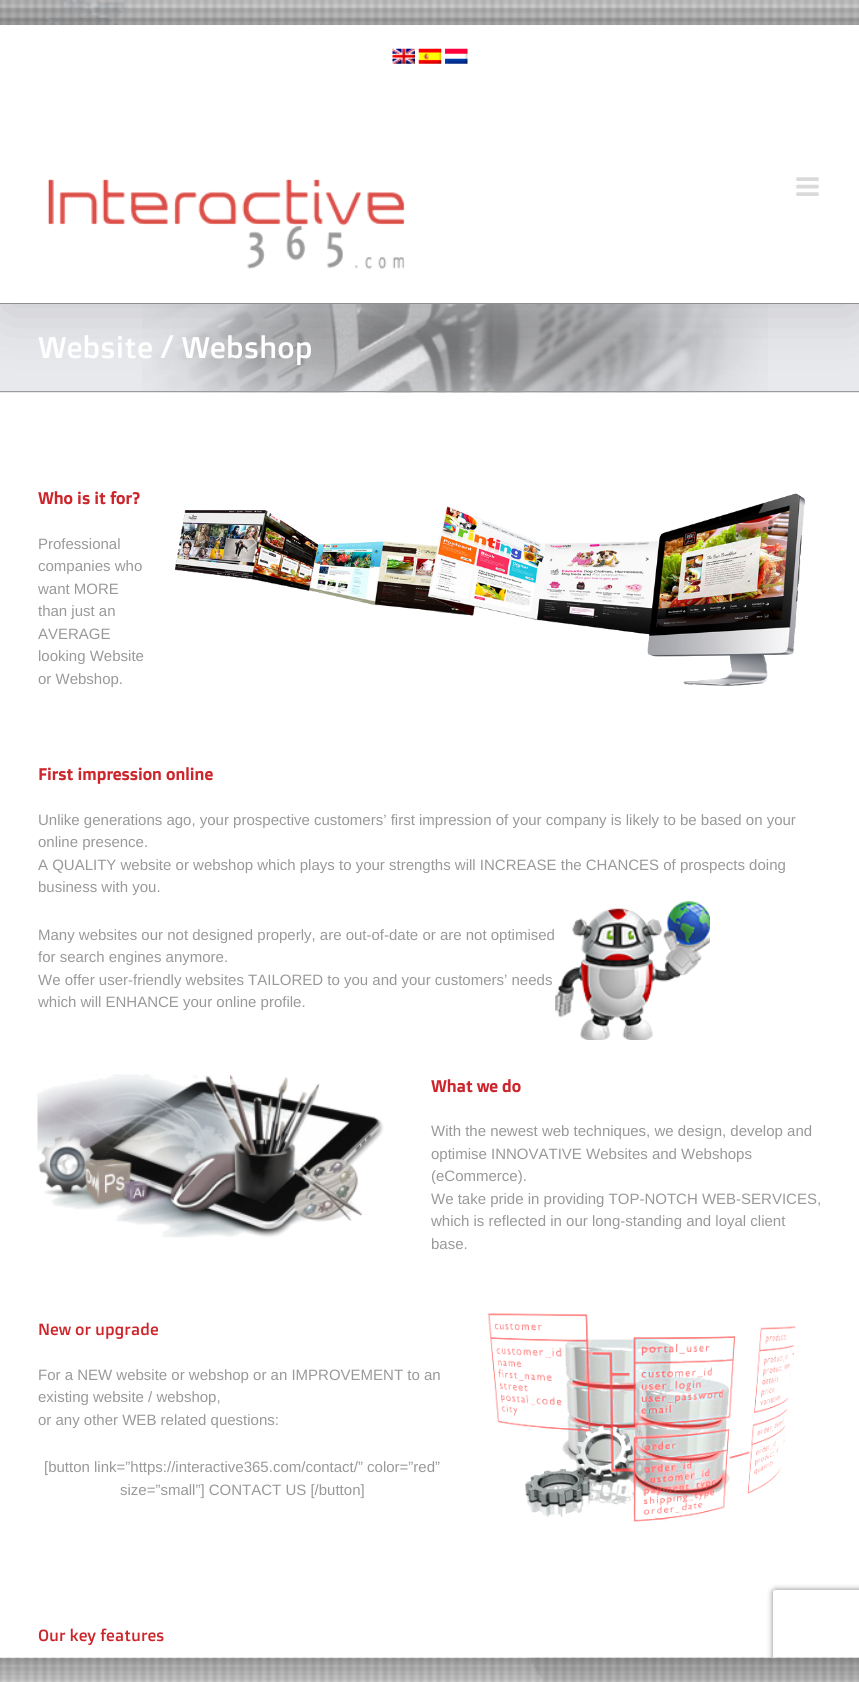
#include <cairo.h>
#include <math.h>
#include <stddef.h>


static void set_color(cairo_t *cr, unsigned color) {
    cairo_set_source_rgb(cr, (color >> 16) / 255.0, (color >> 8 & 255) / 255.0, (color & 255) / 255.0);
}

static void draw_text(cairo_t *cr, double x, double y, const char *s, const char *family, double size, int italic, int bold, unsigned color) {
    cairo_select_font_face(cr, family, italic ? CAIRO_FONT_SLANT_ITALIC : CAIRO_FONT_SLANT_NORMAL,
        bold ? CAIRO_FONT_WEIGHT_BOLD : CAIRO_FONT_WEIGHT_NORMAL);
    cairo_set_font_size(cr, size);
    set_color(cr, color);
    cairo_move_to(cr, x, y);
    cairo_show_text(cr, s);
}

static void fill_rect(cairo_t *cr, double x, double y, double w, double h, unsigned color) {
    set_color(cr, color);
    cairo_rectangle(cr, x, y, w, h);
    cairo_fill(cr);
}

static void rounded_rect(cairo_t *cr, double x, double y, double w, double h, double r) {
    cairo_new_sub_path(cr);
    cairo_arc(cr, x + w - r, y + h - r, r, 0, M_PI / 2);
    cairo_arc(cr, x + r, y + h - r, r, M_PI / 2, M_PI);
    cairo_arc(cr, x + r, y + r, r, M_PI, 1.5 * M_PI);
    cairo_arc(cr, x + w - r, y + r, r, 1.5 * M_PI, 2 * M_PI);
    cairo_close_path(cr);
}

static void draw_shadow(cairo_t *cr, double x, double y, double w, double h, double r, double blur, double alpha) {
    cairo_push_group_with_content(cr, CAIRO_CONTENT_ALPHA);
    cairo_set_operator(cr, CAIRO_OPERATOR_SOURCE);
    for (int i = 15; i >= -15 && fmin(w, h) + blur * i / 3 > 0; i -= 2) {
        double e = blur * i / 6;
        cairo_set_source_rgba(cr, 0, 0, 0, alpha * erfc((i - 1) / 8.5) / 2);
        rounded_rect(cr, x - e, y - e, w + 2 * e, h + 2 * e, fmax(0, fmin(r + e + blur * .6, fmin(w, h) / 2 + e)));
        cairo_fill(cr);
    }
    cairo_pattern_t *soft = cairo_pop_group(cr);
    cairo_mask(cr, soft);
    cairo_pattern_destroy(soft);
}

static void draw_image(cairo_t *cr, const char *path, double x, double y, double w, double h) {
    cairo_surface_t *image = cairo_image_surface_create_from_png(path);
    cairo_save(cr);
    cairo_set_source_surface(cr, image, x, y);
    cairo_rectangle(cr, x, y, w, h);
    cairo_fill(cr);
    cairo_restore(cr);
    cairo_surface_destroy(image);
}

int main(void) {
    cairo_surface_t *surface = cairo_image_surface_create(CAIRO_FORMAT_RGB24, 859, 1682);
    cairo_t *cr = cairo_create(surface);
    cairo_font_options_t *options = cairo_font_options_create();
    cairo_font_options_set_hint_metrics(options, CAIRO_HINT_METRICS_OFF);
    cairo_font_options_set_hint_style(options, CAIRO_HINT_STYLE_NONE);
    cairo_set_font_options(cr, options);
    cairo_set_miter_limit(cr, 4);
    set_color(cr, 0xE8E9ED);
    cairo_paint(cr);
    draw_image(cr, "assets/img7.png", 142, 304, 626, 89);
    fill_rect(cr, 0, 303, 859, 1, 0x9B9B9B);
    fill_rect(cr, 0, 391, 859, 1, 0x9B9B9B);
    fill_rect(cr, 0, 393, 859, 1264, 0xFFFFFF);
    set_color(cr, 0x000000);
    draw_shadow(cr, 3, 40, 855, 273, 0, 31, 0.14);
    draw_image(cr, "assets/img1.png", 0, 0, 859, 25);
    fill_rect(cr, 0, 25, 859, 278, 0xFFFFFF);
    draw_image(cr, "assets/img2.png", 392, 48, 23, 16);
    draw_image(cr, "assets/img3.png", 418, 48, 24, 16);
    draw_image(cr, "assets/img4.png", 445, 48, 23, 16);
    draw_image(cr, "assets/img5.png", 47, 178, 358, 91);
    draw_image(cr, "assets/img6.png", 796, 177, 23, 19);
    draw_image(cr, "assets/img8.png", 175, 493, 630, 193);
    draw_image(cr, "assets/img9.png", 555, 901, 155, 139);
    draw_image(cr, "assets/img10.png", 37, 1074, 347, 164);
    draw_image(cr, "assets/img11.png", 487, 1313, 309, 212);
    cairo_save(cr);
    cairo_set_fill_rule(cr, CAIRO_FILL_RULE_EVEN_ODD);
    cairo_new_path(cr);
    cairo_move_to(cr, 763, 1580);
    cairo_line_to(cr, 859, 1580);
    cairo_line_to(cr, 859, 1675);
    cairo_line_to(cr, 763, 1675);
    cairo_close_path(cr);
    cairo_move_to(cr, 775.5, 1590);
    cairo_line_to(cr, 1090.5, 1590);
    cairo_curve_to(cr, 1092, 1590, 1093, 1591, 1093, 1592.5);
    cairo_line_to(cr, 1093, 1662.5);
    cairo_curve_to(cr, 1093, 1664, 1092, 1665, 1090.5, 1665);
    cairo_line_to(cr, 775.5, 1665);
    cairo_curve_to(cr, 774, 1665, 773, 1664, 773, 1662.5);
    cairo_line_to(cr, 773, 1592.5);
    cairo_curve_to(cr, 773, 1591, 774, 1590, 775.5, 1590);
    cairo_close_path(cr);
    cairo_clip(cr);
    set_color(cr, 0x808080);
    draw_shadow(cr, 773, 1590, 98, 75, 2.5, 3, 1);
    cairo_restore(cr);
    draw_image(cr, "assets/img12.png", 0, 1657, 859, 25);
    cairo_save(cr);
    cairo_set_fill_rule(cr, CAIRO_FILL_RULE_EVEN_ODD);
    cairo_new_path(cr);
    cairo_move_to(cr, 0, 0);
    cairo_line_to(cr, 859, 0);
    cairo_line_to(cr, 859, 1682);
    cairo_line_to(cr, 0, 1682);
    cairo_close_path(cr);
    cairo_move_to(cr, -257, 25);
    cairo_line_to(cr, 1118, 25);
    cairo_line_to(cr, 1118, 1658);
    cairo_line_to(cr, -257, 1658);
    cairo_close_path(cr);
    cairo_clip(cr);
    set_color(cr, 0x000000);
    draw_shadow(cr, -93, 13, 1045, 1657, 0, 31, 0.55);
    cairo_restore(cr);
    draw_text(cr, 38, 358, "Website / Webshop", "Doppio One", 30, 0, 0, 0xFFFFFF);
    draw_text(cr, 38, 504, "Who is it for?", "Doppio One", 16.25, 0, 1, 0xCC262C);
    draw_text(cr, 38, 549, "Professional", "Liberation Sans", 15, 0, 0, 0x999999);
    draw_text(cr, 38, 571, "companies who", "Liberation Sans", 15, 0, 0, 0x999999);
    draw_text(cr, 38, 594, "want MORE", "Liberation Sans", 15, 0, 0, 0x999999);
    draw_text(cr, 38, 616, "than just an", "Liberation Sans", 15, 0, 0, 0x999999);
    draw_text(cr, 38, 639, "AVERAGE", "Liberation Sans", 15, 0, 0, 0x999999);
    draw_text(cr, 38, 661, "looking Website", "Liberation Sans", 15, 0, 0, 0x999999);
    draw_text(cr, 38, 684, "or Webshop.", "Liberation Sans", 15, 0, 0, 0x999999);
    draw_text(cr, 38, 780, "First impression online", "Doppio One", 16.25, 0, 1, 0xCC262C);
    draw_text(cr, 38, 825, "Unlike generations ago, your prospective customers’ first impression of your company is likely to be based on your", "Liberation Sans", 15, 0, 0, 0x999999);
    draw_text(cr, 38, 847, "online presence.", "Liberation Sans", 15, 0, 0, 0x999999);
    draw_text(cr, 38, 870, "A QUALITY website or webshop which plays to your strengths will INCREASE the CHANCES of prospects doing", "Liberation Sans", 15, 0, 0, 0x999999);
    draw_text(cr, 38, 892, "business with you.", "Liberation Sans", 15, 0, 0, 0x999999);
    draw_text(cr, 38, 940, "Many websites our not designed properly, are out-of-date or are not optimised", "Liberation Sans", 15, 0, 0, 0x999999);
    draw_text(cr, 38, 962, "for search engines anymore.", "Liberation Sans", 15, 0, 0, 0x999999);
    draw_text(cr, 38, 985, "We offer user-friendly websites TAILORED to you and your customers’ needs", "Liberation Sans", 15, 0, 0, 0x999999);
    draw_text(cr, 38, 1007, "which will ENHANCE your online profile.", "Liberation Sans", 15, 0, 0, 0x999999);
    draw_text(cr, 431, 1092, "What we do", "Doppio One", 16.25, 0, 1, 0xCC262C);
    draw_text(cr, 431, 1136, "With the newest web techniques, we design, develop and", "Liberation Sans", 15, 0, 0, 0x999999);
    draw_text(cr, 431, 1159, "optimise INNOVATIVE Websites and Webshops", "Liberation Sans", 15, 0, 0, 0x999999);
    draw_text(cr, 431, 1181, "(eCommerce).", "Liberation Sans", 15, 0, 0, 0x999999);
    draw_text(cr, 431, 1204, "We take pride in providing TOP-NOTCH WEB-SERVICES,", "Liberation Sans", 15, 0, 0, 0x999999);
    draw_text(cr, 431, 1226, "which is reflected in our long-standing and loyal client", "Liberation Sans", 15, 0, 0, 0x999999);
    draw_text(cr, 431, 1249, "base.", "Liberation Sans", 15, 0, 0, 0x999999);
    draw_text(cr, 38, 1335, "New or upgrade", "Doppio One", 16.25, 0, 0, 0xCC262C);
    draw_text(cr, 38, 1380, "For a NEW website or webshop or an IMPROVEMENT to an", "Liberation Sans", 15, 0, 0, 0x999999);
    draw_text(cr, 38, 1402, "existing website / webshop,", "Liberation Sans", 15, 0, 0, 0x999999);
    draw_text(cr, 38, 1425, "or any other WEB related questions:", "Liberation Sans", 15, 0, 0, 0x999999);
    draw_text(cr, 44, 1472, "[button link=”https://interactive365.com/contact/” color=”red”", "Liberation Sans", 15, 0, 0, 0x999999);
    draw_text(cr, 120, 1495, "size=”small”] CONTACT US [/button]", "Liberation Sans", 15, 0, 0, 0x999999);
    draw_text(cr, 38, 1641, "Our key features", "Doppio One", 16.25, 0, 0, 0xCC262C);
    cairo_surface_write_to_png(surface, "output.png");
    cairo_font_options_destroy(options);
    cairo_destroy(cr);
    cairo_surface_destroy(surface);
    return 0;
}
